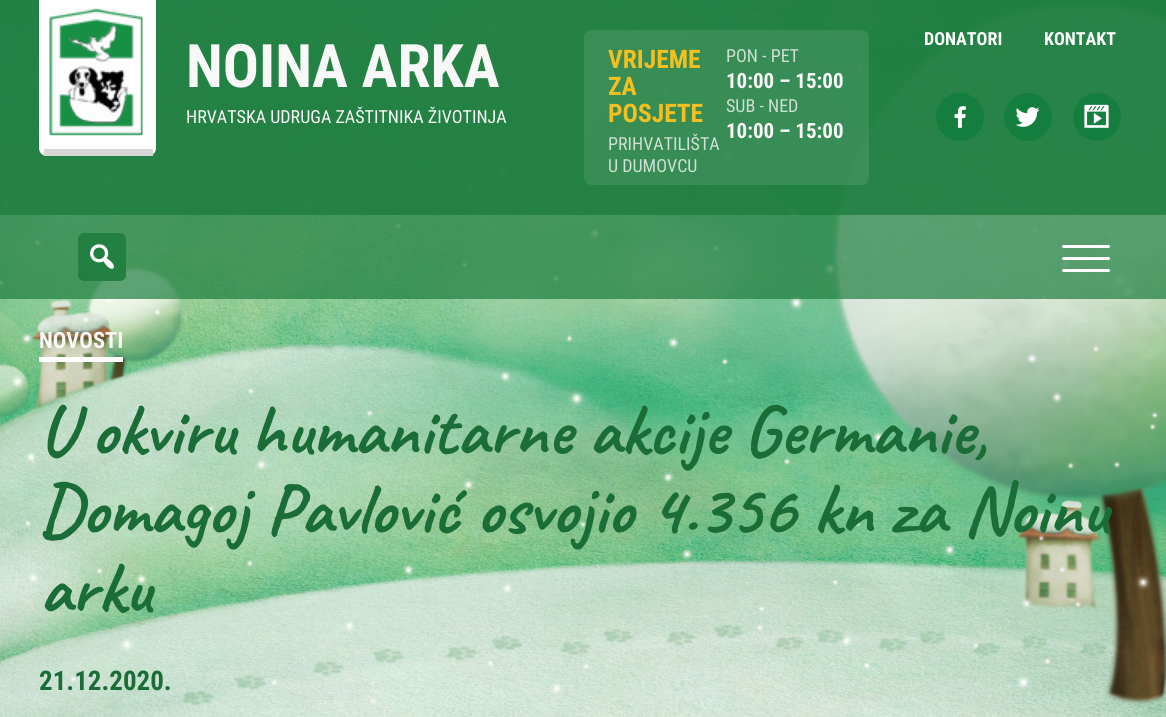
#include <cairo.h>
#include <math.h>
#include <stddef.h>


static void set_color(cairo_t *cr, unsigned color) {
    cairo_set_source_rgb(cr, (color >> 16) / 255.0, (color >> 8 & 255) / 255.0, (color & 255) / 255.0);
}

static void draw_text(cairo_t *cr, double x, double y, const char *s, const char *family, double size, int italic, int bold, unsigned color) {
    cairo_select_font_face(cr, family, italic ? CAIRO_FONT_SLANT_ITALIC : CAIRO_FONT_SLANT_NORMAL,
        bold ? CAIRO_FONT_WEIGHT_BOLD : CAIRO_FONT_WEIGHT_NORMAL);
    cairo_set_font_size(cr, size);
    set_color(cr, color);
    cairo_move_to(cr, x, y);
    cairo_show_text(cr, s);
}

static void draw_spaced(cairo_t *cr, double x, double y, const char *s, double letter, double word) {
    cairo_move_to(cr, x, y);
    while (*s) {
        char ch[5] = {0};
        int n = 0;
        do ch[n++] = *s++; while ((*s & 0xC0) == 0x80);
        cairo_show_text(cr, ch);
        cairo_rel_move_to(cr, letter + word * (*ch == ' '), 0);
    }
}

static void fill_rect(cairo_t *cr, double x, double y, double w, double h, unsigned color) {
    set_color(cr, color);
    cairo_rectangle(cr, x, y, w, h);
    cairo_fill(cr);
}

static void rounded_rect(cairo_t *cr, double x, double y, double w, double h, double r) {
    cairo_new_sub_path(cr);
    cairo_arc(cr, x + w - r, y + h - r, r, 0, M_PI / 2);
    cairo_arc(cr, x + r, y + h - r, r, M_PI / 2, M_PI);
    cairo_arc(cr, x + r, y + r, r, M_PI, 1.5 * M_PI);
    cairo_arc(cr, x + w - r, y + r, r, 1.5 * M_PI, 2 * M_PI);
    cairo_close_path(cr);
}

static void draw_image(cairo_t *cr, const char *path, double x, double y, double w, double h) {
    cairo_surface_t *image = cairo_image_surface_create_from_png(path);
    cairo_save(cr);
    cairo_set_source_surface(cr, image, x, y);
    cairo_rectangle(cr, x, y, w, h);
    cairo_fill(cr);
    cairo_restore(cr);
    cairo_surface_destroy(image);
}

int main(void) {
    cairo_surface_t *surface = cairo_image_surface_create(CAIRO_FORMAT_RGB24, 1166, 717);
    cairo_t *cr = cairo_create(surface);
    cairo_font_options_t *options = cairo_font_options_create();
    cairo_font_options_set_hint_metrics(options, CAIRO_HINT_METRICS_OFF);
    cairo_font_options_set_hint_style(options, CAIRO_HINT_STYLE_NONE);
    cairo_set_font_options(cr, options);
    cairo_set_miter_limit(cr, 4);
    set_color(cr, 0xFFFFFF);
    cairo_paint(cr);
    draw_image(cr, "assets/img1.png", 0, 0, 1166, 717);
    cairo_set_source_rgba(cr, 0.118, 0.494, 0.247, 0.95);
    cairo_rectangle(cr, 0, 0, 1166, 215);
    cairo_fill(cr);
    set_color(cr, 0xFFFFFF);
    cairo_new_path(cr);
    cairo_move_to(cr, 39, 0);
    cairo_line_to(cr, 156, 0);
    cairo_line_to(cr, 156, 148);
    cairo_curve_to(cr, 156, 152.5, 152.5, 156, 148, 156);
    cairo_line_to(cr, 47, 156);
    cairo_curve_to(cr, 42.5, 156, 39, 152.5, 39, 148);
    cairo_close_path(cr);
    cairo_fill(cr);
    fill_rect(cr, 44, 149, 109, 7, 0xD6D6D6);
    draw_image(cr, "assets/img2.png", 49, 8, 94, 128);
    draw_text(cr, 186, 87, "NOINA ARKA", "Roboto Condensed", 60, 0, 1, 0xF8F8F8);
    draw_text(cr, 186, 123, "HRVATSKA UDRUGA ZAŠTITNIKA ŽIVOTINJA", "Roboto Condensed", 18, 0, 0, 0xF8F8F8);
    draw_text(cr, 924, 45, "DONATORI", "Roboto Condensed", 18, 0, 1, 0xFFFFFF);
    draw_text(cr, 1044, 45, "KONTAKT", "Roboto Condensed", 18, 0, 1, 0xFFFFFF);
    set_color(cr, 0x147E3F);
    cairo_new_path(cr);
    cairo_arc(cr, 960, 117, 24, 0, 2 * M_PI);
    cairo_fill(cr);
    draw_image(cr, "assets/img3.png", 954, 106, 12, 22);
    cairo_arc(cr, 1028, 117, 24, 0, 2 * M_PI);
    cairo_fill(cr);
    draw_image(cr, "assets/img4.png", 1015, 107, 25, 20);
    cairo_arc(cr, 1097, 117, 24, 0, 2 * M_PI);
    cairo_fill(cr);
    draw_image(cr, "assets/img5.png", 1084, 104, 25, 24);
    cairo_set_source_rgba(cr, 1, 1, 1, 0.1);
    rounded_rect(cr, 584, 30, 285, 155, 8);
    cairo_fill(cr);
    draw_text(cr, 608, 68, "VRIJEME", "Roboto Condensed", 25.5, 0, 1, 0xF5C01F);
    draw_text(cr, 608, 95, "ZA", "Roboto Condensed", 25.5, 0, 1, 0xF5C01F);
    draw_text(cr, 608, 122, "POSJETE", "Roboto Condensed", 25.5, 0, 1, 0xF5C01F);
    draw_text(cr, 608, 150, "PRIHVATILIŠTA", "Roboto Condensed", 18, 0, 0, 0xCEDFD4);
    draw_text(cr, 608, 172, "U DUMOVCU", "Roboto Condensed", 18, 0, 0, 0xCEDFD4);
    draw_text(cr, 726, 62, "PON - PET", "Roboto Condensed", 18, 0, 0, 0xCEDFD4);
    draw_text(cr, 726, 88, "10:00 – 15:00", "Roboto Condensed", 21, 0, 1, 0xF8F8F8);
    draw_text(cr, 726, 112, "SUB - NED", "Roboto Condensed", 18, 0, 0, 0xCEDFD4);
    draw_text(cr, 726, 138, "10:00 – 15:00", "Roboto Condensed", 21, 0, 1, 0xF8F8F8);
    cairo_set_source_rgba(cr, 0.118, 0.494, 0.247, 0.7);
    cairo_rectangle(cr, 0, 215, 1166, 84);
    cairo_fill(cr);
    cairo_set_source_rgba(cr, 0.118, 0.494, 0.247, 0.9);
    rounded_rect(cr, 78, 233, 48, 48, 6);
    cairo_fill(cr);
    draw_image(cr, "assets/img6.png", 90, 244, 24, 25);
    set_color(cr, 0xFFFFFF);
    rounded_rect(cr, 1062, 245, 48, 3, 1.5);
    cairo_fill(cr);
    rounded_rect(cr, 1062, 257, 48, 3, 1.5);
    cairo_fill(cr);
    rounded_rect(cr, 1062, 269, 48, 3, 1.5);
    cairo_fill(cr);
    draw_text(cr, 39, 348, "NOVOSTI", "Roboto Condensed", 22.5, 0, 1, 0xF8F8F8);
    fill_rect(cr, 39, 357, 84, 5, 0xFFFFFF);
    cairo_select_font_face(cr, "Caveat", CAIRO_FONT_SLANT_NORMAL, CAIRO_FONT_WEIGHT_BOLD);
    cairo_set_font_size(cr, 72);
    set_color(cr, 0x1B6D37);
    draw_spaced(cr, 39, 454, "U okviru humanitarne akcije Germanie,", 0, -0.5);
    draw_spaced(cr, 39, 533, "Domagoj Pavlović osvojio 4.356 kn za Noinu", 0, 0.5);
    draw_text(cr, 39, 612, "arku", "Caveat", 72, 0, 1, 0x1B6D37);
    draw_text(cr, 39, 690, "21.12.2020.", "Roboto Condensed", 27, 0, 1, 0x1B6D37);
    cairo_surface_write_to_png(surface, "output.png");
    cairo_font_options_destroy(options);
    cairo_destroy(cr);
    cairo_surface_destroy(surface);
    return 0;
}
